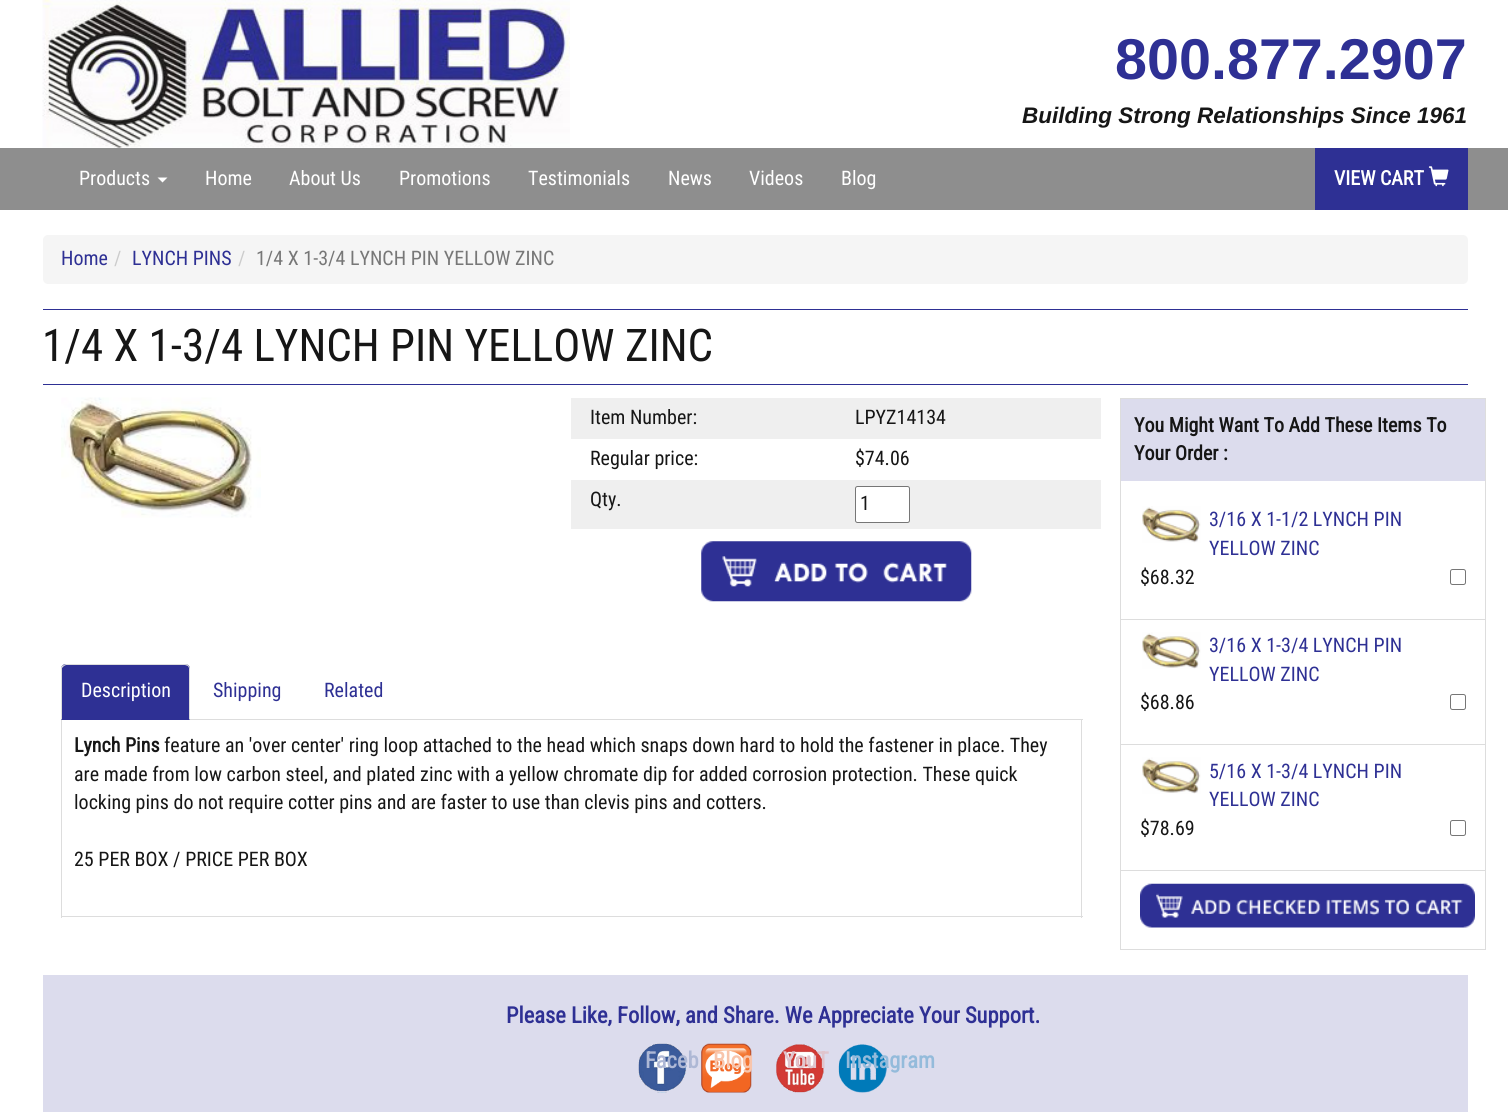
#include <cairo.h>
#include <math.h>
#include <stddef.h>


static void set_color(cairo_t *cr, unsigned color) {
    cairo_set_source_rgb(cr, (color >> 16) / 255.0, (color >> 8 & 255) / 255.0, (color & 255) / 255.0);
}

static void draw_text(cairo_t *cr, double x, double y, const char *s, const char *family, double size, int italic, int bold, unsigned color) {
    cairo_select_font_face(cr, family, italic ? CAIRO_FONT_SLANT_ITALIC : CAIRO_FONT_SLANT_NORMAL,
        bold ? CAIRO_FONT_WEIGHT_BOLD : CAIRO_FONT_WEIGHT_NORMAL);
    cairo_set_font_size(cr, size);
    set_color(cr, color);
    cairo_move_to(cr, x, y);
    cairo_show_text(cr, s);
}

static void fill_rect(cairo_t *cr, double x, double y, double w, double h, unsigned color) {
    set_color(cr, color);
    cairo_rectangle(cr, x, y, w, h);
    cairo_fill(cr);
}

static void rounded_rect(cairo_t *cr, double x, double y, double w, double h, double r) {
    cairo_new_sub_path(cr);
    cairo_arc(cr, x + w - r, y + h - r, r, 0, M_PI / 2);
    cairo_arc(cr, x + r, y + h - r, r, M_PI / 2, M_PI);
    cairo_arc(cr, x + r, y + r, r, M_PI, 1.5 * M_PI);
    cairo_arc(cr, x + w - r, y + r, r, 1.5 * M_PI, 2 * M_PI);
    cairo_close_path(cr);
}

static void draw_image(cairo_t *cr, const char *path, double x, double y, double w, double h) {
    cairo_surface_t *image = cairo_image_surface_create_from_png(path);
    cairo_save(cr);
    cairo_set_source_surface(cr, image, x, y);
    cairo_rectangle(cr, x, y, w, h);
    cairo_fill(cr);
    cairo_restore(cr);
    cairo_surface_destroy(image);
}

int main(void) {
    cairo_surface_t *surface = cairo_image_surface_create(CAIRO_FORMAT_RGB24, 1508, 1112);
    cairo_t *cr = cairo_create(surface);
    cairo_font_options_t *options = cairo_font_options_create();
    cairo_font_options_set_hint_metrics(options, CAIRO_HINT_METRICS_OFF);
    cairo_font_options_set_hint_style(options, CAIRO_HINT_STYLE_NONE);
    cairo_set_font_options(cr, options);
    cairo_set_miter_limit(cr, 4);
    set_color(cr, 0xFFFFFF);
    cairo_paint(cr);
    draw_image(cr, "assets/img1.png", 42, 0, 528, 148);
    draw_text(cr, 1115, 79, "800.877.2907", "Liberation Sans", 57.5, 0, 1, 0x2E3094);
    draw_text(cr, 1022, 123, "Building Strong Relationships Since 1961", "Liberation Sans", 22.5, 1, 1, 0x161616);
    fill_rect(cr, 0, 148, 1508, 62, 0x8E8E8E);
    draw_text(cr, 79, 185, "Products", "Roboto Condensed", 20, 0, 0, 0xFFFFFF);
    cairo_new_path(cr);
    cairo_move_to(cr, 157.5, 177.5);
    cairo_line_to(cr, 167.5, 177.5);
    cairo_line_to(cr, 162.5, 182.5);
    cairo_close_path(cr);
    cairo_fill(cr);
    draw_text(cr, 205, 185, "Home", "Roboto Condensed", 20, 0, 0, 0xFFFFFF);
    draw_text(cr, 289, 185, "About Us", "Roboto Condensed", 20, 0, 0, 0xFFFFFF);
    draw_text(cr, 399, 185, "Promotions", "Roboto Condensed", 20, 0, 0, 0xFFFFFF);
    draw_text(cr, 528, 185, "Testimonials", "Roboto Condensed", 20, 0, 0, 0xFFFFFF);
    draw_text(cr, 668, 185, "News", "Roboto Condensed", 20, 0, 0, 0xFFFFFF);
    draw_text(cr, 749, 185, "Videos", "Roboto Condensed", 20, 0, 0, 0xFFFFFF);
    draw_text(cr, 841, 185, "Blog", "Roboto Condensed", 20, 0, 0, 0xFFFFFF);
    fill_rect(cr, 1315, 148, 153, 62, 0x2E3094);
    draw_text(cr, 1334, 185, "VIEW CART", "Roboto Condensed", 20, 0, 1, 0xFFFFFF);
    draw_image(cr, "assets/img2.png", 1428, 166, 21, 21);
    set_color(cr, 0xF5F5F5);
    rounded_rect(cr, 43, 235, 1425, 49, 5);
    cairo_fill(cr);
    draw_text(cr, 61, 265, "Home", "Roboto Condensed", 20, 0, 0, 0x2E3094);
    draw_text(cr, 114, 265, "/", "Roboto Condensed", 20, 0, 0, 0xCCCCCC);
    draw_text(cr, 132, 265, "LYNCH PINS", "Roboto Condensed", 20, 0, 0, 0x2E3094);
    draw_text(cr, 238, 265, "/", "Roboto Condensed", 20, 0, 0, 0xCCCCCC);
    draw_text(cr, 256, 265, "1/4 X 1-3/4 LYNCH PIN YELLOW ZINC", "Roboto Condensed", 20, 0, 0, 0x777777);
    fill_rect(cr, 43, 309, 1425, 1, 0x2E3094);
    fill_rect(cr, 43, 384, 1425, 1, 0x2E3094);
    draw_text(cr, 42, 361, "1/4 X 1-3/4 LYNCH PIN YELLOW ZINC", "Roboto Condensed", 45, 0, 0, 0x161616);
    draw_image(cr, "assets/img3.png", 61, 397, 200, 121);
    fill_rect(cr, 571, 398, 530, 41, 0xEFEFEF);
    draw_text(cr, 590, 424, "Item Number:", "Roboto Condensed", 20, 0, 0, 0x161616);
    draw_text(cr, 855, 424, "LPYZ14134", "Roboto Condensed", 20, 0, 0, 0x161616);
    draw_text(cr, 590, 465, "Regular price:", "Roboto Condensed", 20, 0, 0, 0x161616);
    draw_text(cr, 855, 465, "$74.06", "Roboto Condensed", 20, 0, 0, 0x161616);
    fill_rect(cr, 571, 480, 530, 49, 0xEFEFEF);
    draw_text(cr, 590, 506, "Qty.", "Roboto Condensed", 20, 0, 0, 0x161616);
    set_color(cr, 0xFFFFFF);
    rounded_rect(cr, 855.5, 486.5, 54, 36, 2);
    cairo_fill_preserve(cr);
    set_color(cr, 0x767676);
    cairo_set_line_width(cr, 1);
    cairo_stroke(cr);
    draw_text(cr, 860, 510, "1", "Roboto Condensed", 20, 0, 0, 0x161616);
    draw_image(cr, "assets/img4.png", 701, 541, 271, 61);
    fill_rect(cr, 190, 719, 893, 1, 0xDDDDDD);
    set_color(cr, 0x2E3094);
    cairo_new_path(cr);
    cairo_move_to(cr, 66, 664);
    cairo_line_to(cr, 185, 664);
    cairo_curve_to(cr, 188, 664, 190, 666, 190, 669);
    cairo_line_to(cr, 190, 720);
    cairo_line_to(cr, 61, 720);
    cairo_line_to(cr, 61, 669);
    cairo_curve_to(cr, 61, 666, 63, 664, 66, 664);
    cairo_close_path(cr);
    cairo_fill(cr);
    set_color(cr, 0xDDDDDD);
    cairo_new_path(cr);
    cairo_move_to(cr, 66, 664);
    cairo_line_to(cr, 63, 665);
    cairo_line_to(cr, 64, 666);
    cairo_line_to(cr, 66, 665);
    cairo_line_to(cr, 185, 665);
    cairo_line_to(cr, 188, 666);
    cairo_line_to(cr, 188, 665);
    cairo_curve_to(cr, 188, 664, 186, 664, 185, 664);
    cairo_close_path(cr);
    cairo_fill(cr);
    cairo_new_path(cr);
    cairo_move_to(cr, 188, 665);
    cairo_curve_to(cr, 189, 666, 190, 667, 190, 669);
    cairo_line_to(cr, 190, 720);
    cairo_line_to(cr, 189, 719);
    cairo_line_to(cr, 189, 668);
    cairo_line_to(cr, 188, 666);
    cairo_close_path(cr);
    cairo_fill(cr);
    cairo_new_path(cr);
    cairo_move_to(cr, 61, 720);
    cairo_line_to(cr, 62, 719);
    cairo_line_to(cr, 62, 668);
    cairo_line_to(cr, 64, 666);
    cairo_line_to(cr, 63, 665);
    cairo_line_to(cr, 61, 667);
    cairo_close_path(cr);
    cairo_fill(cr);
    draw_text(cr, 81, 697, "Description", "Roboto Condensed", 20, 0, 0, 0xFFFFFF);
    draw_text(cr, 213, 697, "Shipping", "Roboto Condensed", 20, 0, 0, 0x2E3094);
    draw_text(cr, 324, 697, "Related", "Roboto Condensed", 20, 0, 0, 0x2E3094);
    fill_rect(cr, 1081, 720, 1, 198, 0xDDDDDD);
    fill_rect(cr, 61, 916, 1022, 1, 0xDDDDDD);
    fill_rect(cr, 61, 720, 1, 198, 0xDDDDDD);
    draw_text(cr, 74, 752, "Lynch Pins", "Roboto Condensed", 20, 0, 1, 0x161616);
    draw_text(cr, 164, 752, "feature an 'over center' ring loop attached to the head which snaps down hard to hold the fastener in place. They", "Roboto Condensed", 20, 0, 0, 0x161616);
    draw_text(cr, 74, 781, "are made from low carbon steel, and plated zinc with a yellow chromate dip for added corrosion protection. These quick", "Roboto Condensed", 20, 0, 0, 0x161616);
    draw_text(cr, 74, 809, "locking pins do not require cotter pins and are faster to use than clevis pins and cotters.", "Roboto Condensed", 20, 0, 0, 0x161616);
    draw_text(cr, 74, 866, "25 PER BOX / PRICE PER BOX", "Roboto Condensed", 20, 0, 0, 0x161616);
    cairo_rectangle(cr, 1120.5, 398.5, 365, 551);
    set_color(cr, 0xDDDDDD);
    cairo_stroke(cr);
    fill_rect(cr, 1121, 399, 364, 82, 0xDCDCED);
    draw_text(cr, 1134, 432, "You Might Want To Add These Items To", "Roboto Condensed", 20, 0, 1, 0x161616);
    draw_text(cr, 1134, 460, "Your Order :", "Roboto Condensed", 20, 0, 1, 0x161616);
    fill_rect(cr, 1121, 619, 364, 1, 0xDDDDDD);
    draw_image(cr, "assets/img5.png", 1142, 506, 59, 37);
    draw_text(cr, 1209, 526, "3/16 X 1-1/2 LYNCH PIN", "Roboto Condensed", 20, 0, 0, 0x2E3094);
    draw_text(cr, 1209, 555, "YELLOW ZINC", "Roboto Condensed", 20, 0, 0, 0x2E3094);
    draw_text(cr, 1140, 584, "$68.32", "Roboto Condensed", 20, 0, 0, 0x161616);
    rounded_rect(cr, 1450.5, 569.5, 15, 15, 2);
    set_color(cr, 0x767676);
    cairo_stroke(cr);
    fill_rect(cr, 1121, 744, 364, 1, 0xDDDDDD);
    draw_image(cr, "assets/img6.png", 1142, 632, 59, 37);
    draw_text(cr, 1209, 652, "3/16 X 1-3/4 LYNCH PIN", "Roboto Condensed", 20, 0, 0, 0x2E3094);
    draw_text(cr, 1209, 681, "YELLOW ZINC", "Roboto Condensed", 20, 0, 0, 0x2E3094);
    draw_text(cr, 1140, 709, "$68.86", "Roboto Condensed", 20, 0, 0, 0x161616);
    rounded_rect(cr, 1450.5, 694.5, 15, 15, 2);
    set_color(cr, 0x767676);
    cairo_stroke(cr);
    fill_rect(cr, 1121, 870, 364, 1, 0xDDDDDD);
    draw_image(cr, "assets/img6.png", 1142, 757, 59, 37);
    draw_text(cr, 1209, 778, "5/16 X 1-3/4 LYNCH PIN", "Roboto Condensed", 20, 0, 0, 0x2E3094);
    draw_text(cr, 1209, 806, "YELLOW ZINC", "Roboto Condensed", 20, 0, 0, 0x2E3094);
    draw_text(cr, 1140, 835, "$78.69", "Roboto Condensed", 20, 0, 0, 0x161616);
    rounded_rect(cr, 1450.5, 820.5, 15, 15, 2);
    set_color(cr, 0x767676);
    cairo_stroke(cr);
    draw_image(cr, "assets/img7.png", 1140, 883, 335, 45);
    fill_rect(cr, 43, 975, 1425, 137, 0xDCDCED);
    draw_text(cr, 506, 1023, "Please Like, Follow, and Share. We Appreciate Your Support.", "Roboto Condensed", 22.5, 0, 1, 0x2E3094);
    draw_image(cr, "assets/img8.png", 638, 1043, 49, 50);
    draw_text(cr, 645, 1068, "Faceb", "Roboto Condensed", 22.5, 0, 1, 0xAEB8D5);
    draw_image(cr, "assets/img9.png", 701, 1043, 51, 50);
    draw_text(cr, 713, 1068, "Blog", "Roboto Condensed", 22.5, 0, 1, 0xF8C5AC);
    draw_image(cr, "assets/img10.png", 776, 1044, 48, 49);
    draw_text(cr, 783, 1068, "YouT", "Roboto Condensed", 22.5, 0, 1, 0xE0C5CD);
    draw_image(cr, "assets/img11.png", 838, 1044, 49, 49);
    draw_text(cr, 845, 1068, "Instagram", "Roboto Condensed", 22.5, 0, 1, 0x94BBDB);
    cairo_surface_write_to_png(surface, "output.png");
    cairo_font_options_destroy(options);
    cairo_destroy(cr);
    cairo_surface_destroy(surface);
    return 0;
}
